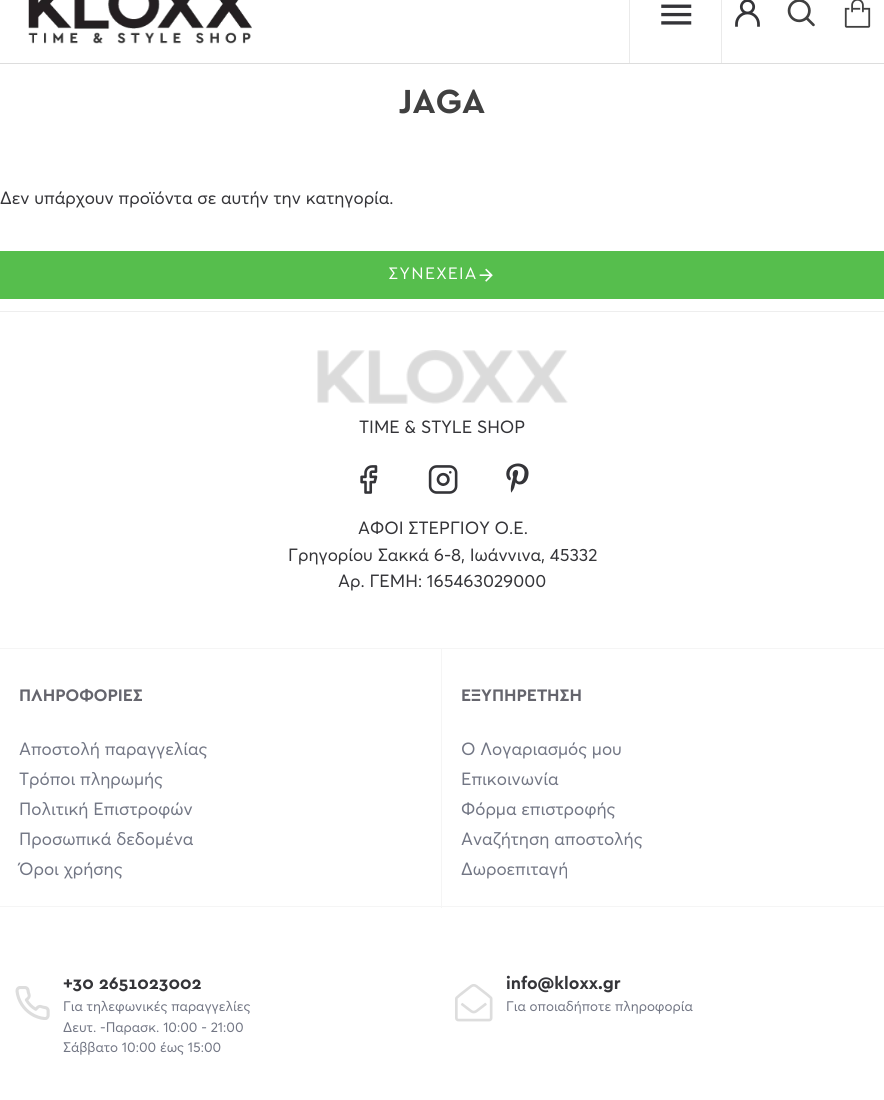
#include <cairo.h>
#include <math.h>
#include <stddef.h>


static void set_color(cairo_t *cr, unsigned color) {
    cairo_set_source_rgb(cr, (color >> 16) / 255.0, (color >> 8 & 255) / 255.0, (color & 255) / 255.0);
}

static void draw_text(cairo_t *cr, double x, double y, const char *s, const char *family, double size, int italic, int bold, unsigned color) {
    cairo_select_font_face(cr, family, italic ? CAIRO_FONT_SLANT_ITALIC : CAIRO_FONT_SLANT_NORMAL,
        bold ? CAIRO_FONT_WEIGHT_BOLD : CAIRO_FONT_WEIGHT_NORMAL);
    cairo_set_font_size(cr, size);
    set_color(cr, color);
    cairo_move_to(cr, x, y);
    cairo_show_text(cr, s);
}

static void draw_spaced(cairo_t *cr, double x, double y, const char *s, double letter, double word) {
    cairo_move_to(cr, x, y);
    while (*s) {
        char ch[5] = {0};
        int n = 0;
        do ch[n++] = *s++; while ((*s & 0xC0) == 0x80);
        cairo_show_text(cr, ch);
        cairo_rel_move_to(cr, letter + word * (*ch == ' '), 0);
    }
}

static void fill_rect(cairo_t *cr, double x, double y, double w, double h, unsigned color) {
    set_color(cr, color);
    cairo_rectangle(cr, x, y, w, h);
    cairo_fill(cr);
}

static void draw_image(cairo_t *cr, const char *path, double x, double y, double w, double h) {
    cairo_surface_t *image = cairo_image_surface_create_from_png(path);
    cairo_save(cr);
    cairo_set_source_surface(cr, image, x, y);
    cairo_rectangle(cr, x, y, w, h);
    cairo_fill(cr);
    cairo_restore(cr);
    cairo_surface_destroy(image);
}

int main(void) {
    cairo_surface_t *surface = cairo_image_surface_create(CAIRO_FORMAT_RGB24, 884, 1100);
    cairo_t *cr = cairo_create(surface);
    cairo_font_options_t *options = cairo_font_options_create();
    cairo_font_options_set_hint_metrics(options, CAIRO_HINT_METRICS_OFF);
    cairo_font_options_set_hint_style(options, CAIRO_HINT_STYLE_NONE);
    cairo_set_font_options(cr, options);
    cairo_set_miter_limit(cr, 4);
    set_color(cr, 0xFFFFFF);
    cairo_paint(cr);
    fill_rect(cr, 0, 63, 884, 1, 0xDDDDDD);
    draw_image(cr, "assets/img1.png", 28, 0, 224, 44);
    fill_rect(cr, 721, 0, 1, 63, 0xEAEAEA);
    fill_rect(cr, 629, 0, 1, 63, 0xEAEAEA);
    draw_image(cr, "assets/img2.png", 661, 4, 31, 21);
    draw_image(cr, "assets/img3.png", 735, 0, 25, 27);
    draw_image(cr, "assets/img4.png", 787, 0, 28, 27);
    draw_image(cr, "assets/img5.png", 844, 0, 27, 28);
    draw_text(cr, 399, 113, "JAGA", "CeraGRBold", 35, 0, 1, 0x404040);
    draw_text(cr, 0, 204, "Δεν υπάρχουν προϊόντα σε αυτήν την κατηγορία.", "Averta", 17.5, 0, 0, 0x343438);
    fill_rect(cr, 0, 251, 884, 48, 0x56BE4D);
    cairo_select_font_face(cr, "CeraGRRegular", CAIRO_FONT_SLANT_NORMAL, CAIRO_FONT_WEIGHT_NORMAL);
    set_color(cr, 0xFFFFFF);
    draw_spaced(cr, 388, 279, "ΣΥΝΕΧΕΙΑ", 1.25, 0);
    draw_image(cr, "assets/img6.png", 479, 268, 14, 14);
    fill_rect(cr, 0, 311, 884, 1, 0xEEEEEE);
    fill_rect(cr, 0, 648, 884, 1, 0xF5F5F5);
    draw_image(cr, "assets/img7.png", 317, 350, 251, 54);
    draw_text(cr, 359, 433, "TIME & STYLE SHOP", "Averta", 17.5, 0, 0, 0x343438);
    draw_image(cr, "assets/img8.png", 360, 465, 18, 29);
    draw_image(cr, "assets/img9.png", 428, 465, 30, 29);
    draw_image(cr, "assets/img10.png", 506, 463, 23, 30);
    draw_text(cr, 358, 534, "ΑΦΟΙ ΣΤΕΡΓΙΟΥ Ο.Ε.", "Averta", 17.5, 0, 0, 0x343438);
    draw_text(cr, 288, 561, "Γρηγορίου Σακκά 6-8, Ιωάννινα, 45332", "Averta", 17.5, 0, 0, 0x343438);
    draw_text(cr, 338, 587, "Αρ. ΓΕΜΗ: 165463029000", "Averta", 17.5, 0, 0, 0x343438);
    fill_rect(cr, 441, 649, 1, 259, 0xF5F5F5);
    fill_rect(cr, 0, 906, 884, 1, 0xF5F5F5);
    draw_text(cr, 19, 701, "ΠΛΗΡΟΦΟΡΙΕΣ", "CeraGRBold", 17.5, 0, 1, 0x65656D);
    draw_text(cr, 19, 755, "Αποστολή παραγγελίας", "Averta", 17.5, 0, 0, 0x727684);
    draw_text(cr, 19, 785, "Τρόποι πληρωμής", "Averta", 17.5, 0, 0, 0x727684);
    draw_text(cr, 19, 815, "Πολιτική Επιστροφών", "Averta", 17.5, 0, 0, 0x727684);
    draw_text(cr, 19, 845, "Προσωπικά δεδομένα", "Averta", 17.5, 0, 0, 0x727684);
    draw_text(cr, 19, 875, "Όροι χρήσης", "Averta", 17.5, 0, 0, 0x727684);
    draw_text(cr, 461, 701, "ΕΞΥΠΗΡΕΤΗΣΗ", "CeraGRBold", 17.5, 0, 1, 0x65656D);
    draw_text(cr, 461, 755, "Ο Λογαριασμός μου", "Averta", 17.5, 0, 0, 0x727684);
    draw_text(cr, 461, 785, "Επικοινωνία", "Averta", 17.5, 0, 0, 0x727684);
    draw_text(cr, 461, 815, "Φόρμα επιστροφής", "Averta", 17.5, 0, 0, 0x727684);
    draw_text(cr, 461, 845, "Αναζήτηση αποστολής", "Averta", 17.5, 0, 0, 0x727684);
    draw_text(cr, 461, 875, "Δωροεπιταγή", "Averta", 17.5, 0, 0, 0x727684);
    draw_image(cr, "assets/img11.png", 15, 986, 35, 34);
    draw_text(cr, 63, 989, "+30 2651023002", "CeraGRBold", 17.5, 0, 1, 0x343438);
    draw_text(cr, 63, 1011, "Για τηλεφωνικές παραγγελίες", "Averta", 13.75, 0, 0, 0x727684);
    draw_text(cr, 63, 1032, "Δευτ. -Παρασκ. 10:00 - 21:00", "Averta", 13.75, 0, 0, 0x727684);
    draw_text(cr, 63, 1052, "Σάββατο 10:00 έως 15:00", "Averta", 13.75, 0, 0, 0x727684);
    draw_image(cr, "assets/img12.png", 455, 984, 38, 38);
    draw_text(cr, 506, 989, "info@kloxx.gr", "CeraGRBold", 17.5, 0, 1, 0x343438);
    draw_text(cr, 506, 1011, "Για οποιαδήποτε πληροφορία", "Averta", 13.75, 0, 0, 0x727684);
    cairo_surface_write_to_png(surface, "output.png");
    cairo_font_options_destroy(options);
    cairo_destroy(cr);
    cairo_surface_destroy(surface);
    return 0;
}
